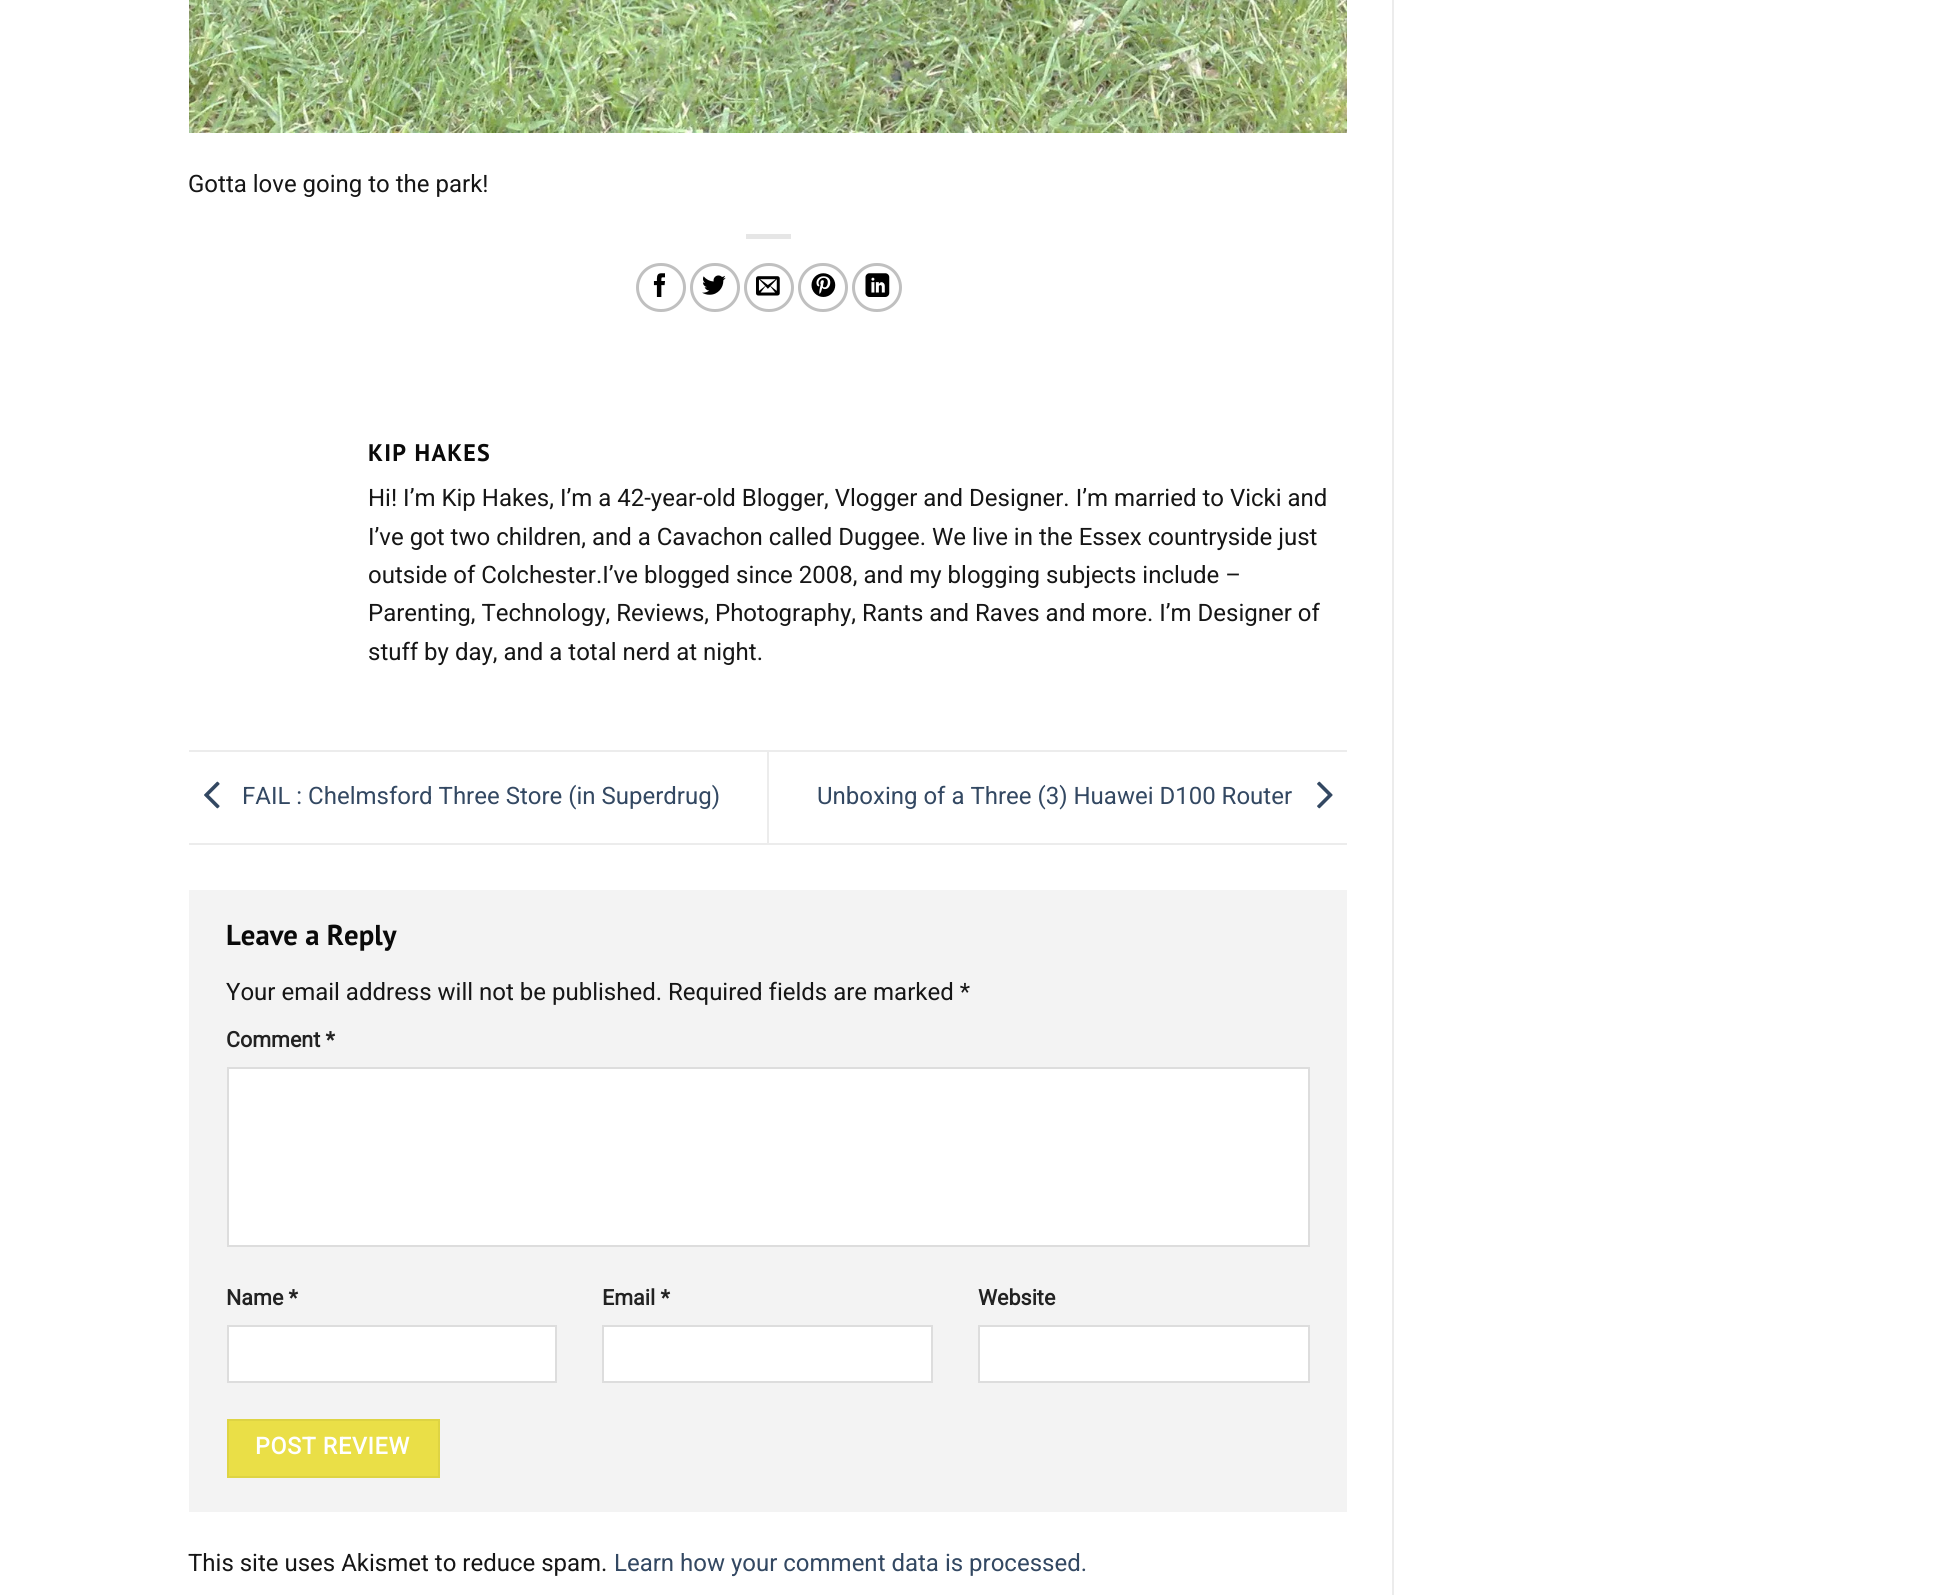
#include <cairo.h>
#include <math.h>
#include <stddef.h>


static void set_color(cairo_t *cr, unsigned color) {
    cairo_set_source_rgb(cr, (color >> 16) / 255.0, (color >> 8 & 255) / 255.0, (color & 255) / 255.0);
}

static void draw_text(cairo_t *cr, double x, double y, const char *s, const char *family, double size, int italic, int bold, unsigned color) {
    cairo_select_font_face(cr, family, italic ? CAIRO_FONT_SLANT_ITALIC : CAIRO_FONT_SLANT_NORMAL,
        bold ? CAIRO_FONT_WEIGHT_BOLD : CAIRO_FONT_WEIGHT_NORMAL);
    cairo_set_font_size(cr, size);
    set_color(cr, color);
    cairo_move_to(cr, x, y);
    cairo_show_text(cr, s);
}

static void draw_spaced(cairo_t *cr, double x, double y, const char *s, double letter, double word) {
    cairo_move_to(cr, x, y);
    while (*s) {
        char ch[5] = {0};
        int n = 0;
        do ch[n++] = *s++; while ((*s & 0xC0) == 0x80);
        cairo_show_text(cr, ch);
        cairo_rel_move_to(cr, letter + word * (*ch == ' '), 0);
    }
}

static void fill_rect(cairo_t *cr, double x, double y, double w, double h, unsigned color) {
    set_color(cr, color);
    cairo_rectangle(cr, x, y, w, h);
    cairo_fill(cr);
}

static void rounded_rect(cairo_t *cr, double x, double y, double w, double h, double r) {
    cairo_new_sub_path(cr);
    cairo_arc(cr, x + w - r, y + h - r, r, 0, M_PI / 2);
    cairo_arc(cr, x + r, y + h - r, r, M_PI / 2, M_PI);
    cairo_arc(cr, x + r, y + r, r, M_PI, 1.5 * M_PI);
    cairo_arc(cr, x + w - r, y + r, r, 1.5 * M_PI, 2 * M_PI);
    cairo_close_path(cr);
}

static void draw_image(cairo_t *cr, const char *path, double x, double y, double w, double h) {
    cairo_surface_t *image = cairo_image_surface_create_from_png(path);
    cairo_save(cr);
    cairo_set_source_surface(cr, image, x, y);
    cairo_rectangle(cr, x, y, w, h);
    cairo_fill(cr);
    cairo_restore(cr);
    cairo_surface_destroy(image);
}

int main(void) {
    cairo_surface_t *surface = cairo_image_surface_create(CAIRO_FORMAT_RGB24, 1951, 1595);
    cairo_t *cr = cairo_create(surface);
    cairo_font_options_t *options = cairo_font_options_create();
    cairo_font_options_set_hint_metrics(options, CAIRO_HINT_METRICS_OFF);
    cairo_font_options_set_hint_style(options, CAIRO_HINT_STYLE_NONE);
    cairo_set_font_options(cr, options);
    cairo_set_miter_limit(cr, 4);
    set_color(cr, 0xFFFFFF);
    cairo_paint(cr);
    draw_image(cr, "assets/img1.png", 189, 0, 1158, 133);
    draw_text(cr, 188, 192, "Gotta love going to the park!", "Roboto", 24, 0, 0, 0x161616);
    fill_rect(cr, 746, 234, 45, 5, 0xE6E6E6);
    rounded_rect(cr, 637.5, 264.5, 47, 46, 23);
    set_color(cr, 0xC0C0C0);
    cairo_set_line_width(cr, 3);
    cairo_stroke(cr);
    draw_image(cr, "assets/img2.png", 653, 273, 12, 24);
    rounded_rect(cr, 691.5, 264.5, 47, 46, 23);
    cairo_stroke(cr);
    draw_image(cr, "assets/img3.png", 702, 275, 24, 20);
    rounded_rect(cr, 745.5, 264.5, 47, 46, 23);
    cairo_stroke(cr);
    draw_image(cr, "assets/img4.png", 756, 276, 24, 20);
    rounded_rect(cr, 799.5, 264.5, 47, 46, 23);
    cairo_stroke(cr);
    draw_image(cr, "assets/img5.png", 811, 273, 25, 24);
    rounded_rect(cr, 853.5, 264.5, 47, 46, 23);
    cairo_stroke(cr);
    draw_image(cr, "assets/img6.png", 865, 273, 25, 24);
    cairo_select_font_face(cr, "PT Sans", CAIRO_FONT_SLANT_NORMAL, CAIRO_FONT_WEIGHT_BOLD);
    set_color(cr, 0x0A0A0A);
    draw_spaced(cr, 368, 461, "KIP HAKES", 1.25, 0);
    draw_text(cr, 368, 506, "Hi! I’m Kip Hakes, I’m a 42-year-old Blogger, Vlogger and Designer. I’m married to Vicki and", "Roboto", 24, 0, 0, 0x161616);
    draw_text(cr, 368, 545, "I’ve got two children, and a Cavachon called Duggee. We live in the Essex countryside just", "Roboto", 24, 0, 0, 0x161616);
    draw_text(cr, 368, 583, "outside of Colchester.I’ve blogged since 2008, and my blogging subjects include –", "Roboto", 24, 0, 0, 0x161616);
    draw_text(cr, 368, 621, "Parenting, Technology, Reviews, Photography, Rants and Raves and more. I’m Designer of", "Roboto", 24, 0, 0, 0x161616);
    draw_text(cr, 368, 660, "stuff by day, and a total nerd at night.", "Roboto", 24, 0, 0, 0x161616);
    fill_rect(cr, 189, 750, 1158, 2, 0xECECEC);
    fill_rect(cr, 189, 843, 1158, 2, 0xECECEC);
    draw_image(cr, "assets/img7.png", 204, 781, 16, 28);
    draw_text(cr, 242, 804, "FAIL : Chelmsford Three Store (in Superdrug)", "Roboto", 24, 0, 0, 0x334862);
    fill_rect(cr, 767, 752, 2, 91, 0xECECEC);
    draw_text(cr, 817, 804, "Unboxing of a Three (3) Huawei D100 Router", "Roboto", 24, 0, 0, 0x334862);
    draw_image(cr, "assets/img8.png", 1317, 781, 16, 28);
    fill_rect(cr, 189, 890, 1158, 622, 0xF3F3F3);
    draw_text(cr, 226, 945, "Leave a Reply", "PT Sans", 28.75, 0, 1, 0x0A0A0A);
    draw_text(cr, 226, 1000, "Your email address will not be published. Required fields are marked *", "Roboto", 24, 0, 0, 0x161616);
    draw_text(cr, 226, 1047, "Comment *", "Roboto", 21.5, 0, 1, 0x222222);
    set_color(cr, 0xFFFFFF);
    cairo_rectangle(cr, 228, 1068, 1081, 178);
    cairo_fill_preserve(cr);
    set_color(cr, 0xDDDDDD);
    cairo_set_line_width(cr, 2);
    cairo_stroke(cr);
    draw_text(cr, 226, 1305, "Name *", "Roboto", 21.5, 0, 1, 0x222222);
    set_color(cr, 0xFFFFFF);
    cairo_rectangle(cr, 228, 1326, 328, 56);
    cairo_fill_preserve(cr);
    set_color(cr, 0xDDDDDD);
    cairo_stroke(cr);
    draw_text(cr, 602, 1305, "Email *", "Roboto", 21.5, 0, 1, 0x222222);
    set_color(cr, 0xFFFFFF);
    cairo_rectangle(cr, 603, 1326, 329, 56);
    cairo_fill_preserve(cr);
    set_color(cr, 0xDDDDDD);
    cairo_stroke(cr);
    draw_text(cr, 978, 1305, "Website", "Roboto", 21.5, 0, 1, 0x222222);
    set_color(cr, 0xFFFFFF);
    cairo_rectangle(cr, 979, 1326, 330, 56);
    cairo_fill_preserve(cr);
    set_color(cr, 0xDDDDDD);
    cairo_stroke(cr);
    set_color(cr, 0xEADF47);
    cairo_rectangle(cr, 228, 1420, 211, 57);
    cairo_fill_preserve(cr);
    set_color(cr, 0xDED443);
    cairo_stroke(cr);
    cairo_set_font_size(cr, 23.25);
    set_color(cr, 0xFFFFFF);
    draw_spaced(cr, 255, 1454, "POST REVIEW", 0.75, 0);
    draw_text(cr, 188, 1571, "This site uses Akismet to reduce spam.", "Roboto", 24, 0, 0, 0x161616);
    draw_text(cr, 614, 1571, "Learn how your comment data is processed.", "Roboto", 24, 0, 0, 0x334862);
    fill_rect(cr, 1392, 0, 2, 1595, 0xECECEC);
    cairo_surface_write_to_png(surface, "output.png");
    cairo_font_options_destroy(options);
    cairo_destroy(cr);
    cairo_surface_destroy(surface);
    return 0;
}
